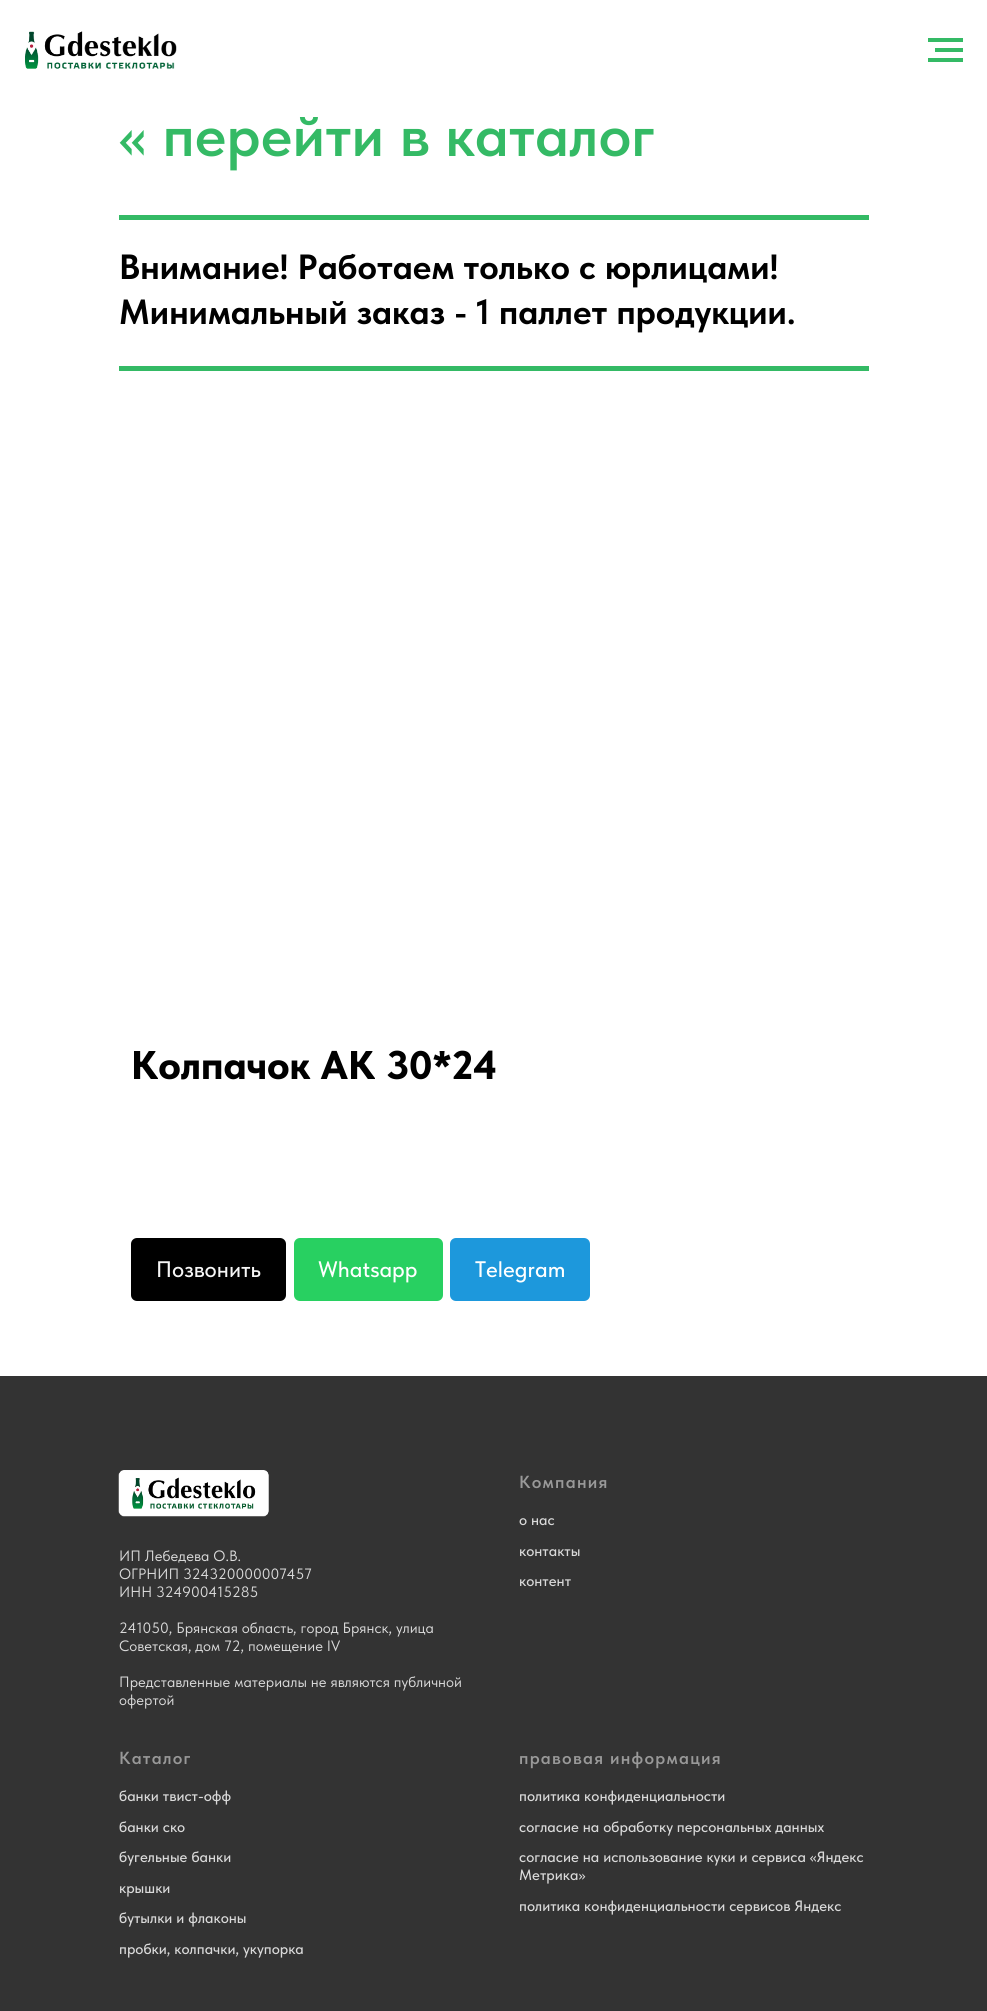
#include <cairo.h>
#include <math.h>
#include <stddef.h>


static void set_color(cairo_t *cr, unsigned color) {
    cairo_set_source_rgb(cr, (color >> 16) / 255.0, (color >> 8 & 255) / 255.0, (color & 255) / 255.0);
}

static void draw_text(cairo_t *cr, double x, double y, const char *s, const char *family, double size, int italic, int bold, unsigned color) {
    cairo_select_font_face(cr, family, italic ? CAIRO_FONT_SLANT_ITALIC : CAIRO_FONT_SLANT_NORMAL,
        bold ? CAIRO_FONT_WEIGHT_BOLD : CAIRO_FONT_WEIGHT_NORMAL);
    cairo_set_font_size(cr, size);
    set_color(cr, color);
    cairo_move_to(cr, x, y);
    cairo_show_text(cr, s);
}

static void draw_spaced(cairo_t *cr, double x, double y, const char *s, double letter, double word) {
    cairo_move_to(cr, x, y);
    while (*s) {
        char ch[5] = {0};
        int n = 0;
        do ch[n++] = *s++; while ((*s & 0xC0) == 0x80);
        cairo_show_text(cr, ch);
        cairo_rel_move_to(cr, letter + word * (*ch == ' '), 0);
    }
}

static void fill_rect(cairo_t *cr, double x, double y, double w, double h, unsigned color) {
    set_color(cr, color);
    cairo_rectangle(cr, x, y, w, h);
    cairo_fill(cr);
}

static void rounded_rect(cairo_t *cr, double x, double y, double w, double h, double r) {
    cairo_new_sub_path(cr);
    cairo_arc(cr, x + w - r, y + h - r, r, 0, M_PI / 2);
    cairo_arc(cr, x + r, y + h - r, r, M_PI / 2, M_PI);
    cairo_arc(cr, x + r, y + r, r, M_PI, 1.5 * M_PI);
    cairo_arc(cr, x + w - r, y + r, r, 1.5 * M_PI, 2 * M_PI);
    cairo_close_path(cr);
}

static void draw_image(cairo_t *cr, const char *path, double x, double y, double w, double h) {
    cairo_surface_t *image = cairo_image_surface_create_from_png(path);
    cairo_save(cr);
    cairo_set_source_surface(cr, image, x, y);
    cairo_rectangle(cr, x, y, w, h);
    cairo_fill(cr);
    cairo_restore(cr);
    cairo_surface_destroy(image);
}

int main(void) {
    cairo_surface_t *surface = cairo_image_surface_create(CAIRO_FORMAT_RGB24, 987, 2011);
    cairo_t *cr = cairo_create(surface);
    cairo_font_options_t *options = cairo_font_options_create();
    cairo_font_options_set_hint_metrics(options, CAIRO_HINT_METRICS_OFF);
    cairo_font_options_set_hint_style(options, CAIRO_HINT_STYLE_NONE);
    cairo_set_font_options(cr, options);
    cairo_set_miter_limit(cr, 4);
    set_color(cr, 0xFFFFFF);
    cairo_paint(cr);
    draw_image(cr, "assets/img1.png", 25, 31, 152, 38);
    fill_rect(cr, 928, 38, 35, 4, 0x34BA65);
    fill_rect(cr, 935, 48, 28, 4, 0x34BA65);
    fill_rect(cr, 928, 58, 35, 4, 0x34BA65);
    draw_text(cr, 119, 156, "« перейти в каталог", "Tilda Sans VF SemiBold", 60, 0, 0, 0x34BA65);
    fill_rect(cr, 119, 215, 750, 5, 0x34BA65);
    draw_text(cr, 119, 279, "Внимание! Работаем только с юрлицами!", "Tilda Sans VF", 35, 0, 1, 0x000000);
    draw_text(cr, 119, 324, "Минимальный заказ - 1 паллет продукции.", "Tilda Sans VF", 35, 0, 1, 0x000000);
    fill_rect(cr, 119, 366, 750, 5, 0x34BA65);
    draw_text(cr, 131, 1079, "Колпачок АК 30*24", "Tilda Sans VF ExtraBold", 40, 0, 0, 0x000000);
    rounded_rect(cr, 131, 1238, 155, 63, 6);
    cairo_fill(cr);
    draw_text(cr, 156, 1277, "Позвонить", "Tilda Sans VF Medium", 22.5, 0, 0, 0xF6F6F6);
    set_color(cr, 0x28D061);
    rounded_rect(cr, 294, 1238, 149, 63, 6);
    cairo_fill(cr);
    draw_text(cr, 318, 1277, "Whatsapp", "Tilda Sans VF Medium", 22.5, 0, 0, 0xFFFFFF);
    set_color(cr, 0x1D98DC);
    rounded_rect(cr, 450, 1238, 140, 63, 6);
    cairo_fill(cr);
    draw_text(cr, 475, 1277, "Telegram", "Tilda Sans VF Medium", 22.5, 0, 0, 0xFFFFFF);
    fill_rect(cr, 0, 1376, 987, 635, 0x333333);
    cairo_select_font_face(cr, "Tilda Sans VF SemiBold", CAIRO_FONT_SLANT_NORMAL, CAIRO_FONT_WEIGHT_NORMAL);
    cairo_set_font_size(cr, 17.5);
    set_color(cr, 0x999999);
    draw_spaced(cr, 519, 1488, "Компания", 1.25, 0);
    draw_text(cr, 519, 1525, "о нас", "Tilda Sans VF Medium", 15, 0, 0, 0xDADADA);
    draw_text(cr, 519, 1556, "контакты", "Tilda Sans VF Medium", 15, 0, 0, 0xDADADA);
    draw_text(cr, 519, 1586, "контент", "Tilda Sans VF Medium", 15, 0, 0, 0xDADADA);
    draw_image(cr, "assets/img2.png", 118, 1470, 151, 47);
    draw_text(cr, 119, 1561, "ИП Лебедева О.В.", "Tilda Sans VF", 15, 0, 0, 0xDADADA);
    draw_text(cr, 119, 1579, "ОГРНИП 324320000007457", "Tilda Sans VF", 15, 0, 0, 0xDADADA);
    draw_text(cr, 119, 1597, "ИНН 324900415285", "Tilda Sans VF", 15, 0, 0, 0xDADADA);
    draw_text(cr, 119, 1633, "241050, Брянская область, город Брянск, улица", "Tilda Sans VF", 15, 0, 0, 0xDADADA);
    draw_text(cr, 119, 1651, "Советская, дом 72, помещение IV", "Tilda Sans VF", 15, 0, 0, 0xDADADA);
    draw_text(cr, 119, 1687, "Представленные материалы не являются публичной", "Tilda Sans VF", 15, 0, 0, 0xDADADA);
    draw_text(cr, 119, 1705, "офертой", "Tilda Sans VF", 15, 0, 0, 0xDADADA);
    cairo_select_font_face(cr, "Tilda Sans VF SemiBold", CAIRO_FONT_SLANT_NORMAL, CAIRO_FONT_WEIGHT_NORMAL);
    cairo_set_font_size(cr, 17.5);
    set_color(cr, 0x999999);
    draw_spaced(cr, 119, 1764, "Каталог", 1.25, 0);
    draw_text(cr, 119, 1801, "банки твист-офф", "Tilda Sans VF Medium", 15, 0, 0, 0xDADADA);
    draw_text(cr, 119, 1832, "банки ско", "Tilda Sans VF Medium", 15, 0, 0, 0xDADADA);
    draw_text(cr, 119, 1862, "бугельные банки", "Tilda Sans VF Medium", 15, 0, 0, 0xDADADA);
    draw_text(cr, 119, 1893, "крышки", "Tilda Sans VF Medium", 15, 0, 0, 0xDADADA);
    draw_text(cr, 119, 1923, "бутылки и флаконы", "Tilda Sans VF Medium", 15, 0, 0, 0xDADADA);
    draw_text(cr, 119, 1954, "пробки, колпачки, укупорка", "Tilda Sans VF Medium", 15, 0, 0, 0xDADADA);
    cairo_select_font_face(cr, "Tilda Sans VF SemiBold", CAIRO_FONT_SLANT_NORMAL, CAIRO_FONT_WEIGHT_NORMAL);
    cairo_set_font_size(cr, 17.5);
    set_color(cr, 0x999999);
    draw_spaced(cr, 519, 1764, "правовая информация", 1.25, 0);
    draw_text(cr, 519, 1801, "политика конфиденциальности", "Tilda Sans VF Medium", 15, 0, 0, 0xDADADA);
    draw_text(cr, 519, 1832, "согласие на обработку персональных данных", "Tilda Sans VF Medium", 15, 0, 0, 0xDADADA);
    draw_text(cr, 519, 1862, "согласие на использование куки и сервиса «Яндекс", "Tilda Sans VF Medium", 15, 0, 0, 0xDADADA);
    draw_text(cr, 519, 1880, "Метрика»", "Tilda Sans VF Medium", 15, 0, 0, 0xDADADA);
    draw_text(cr, 519, 1911, "политика конфиденциальности сервисов Яндекс", "Tilda Sans VF Medium", 15, 0, 0, 0xDADADA);
    cairo_surface_write_to_png(surface, "output.png");
    cairo_font_options_destroy(options);
    cairo_destroy(cr);
    cairo_surface_destroy(surface);
    return 0;
}
